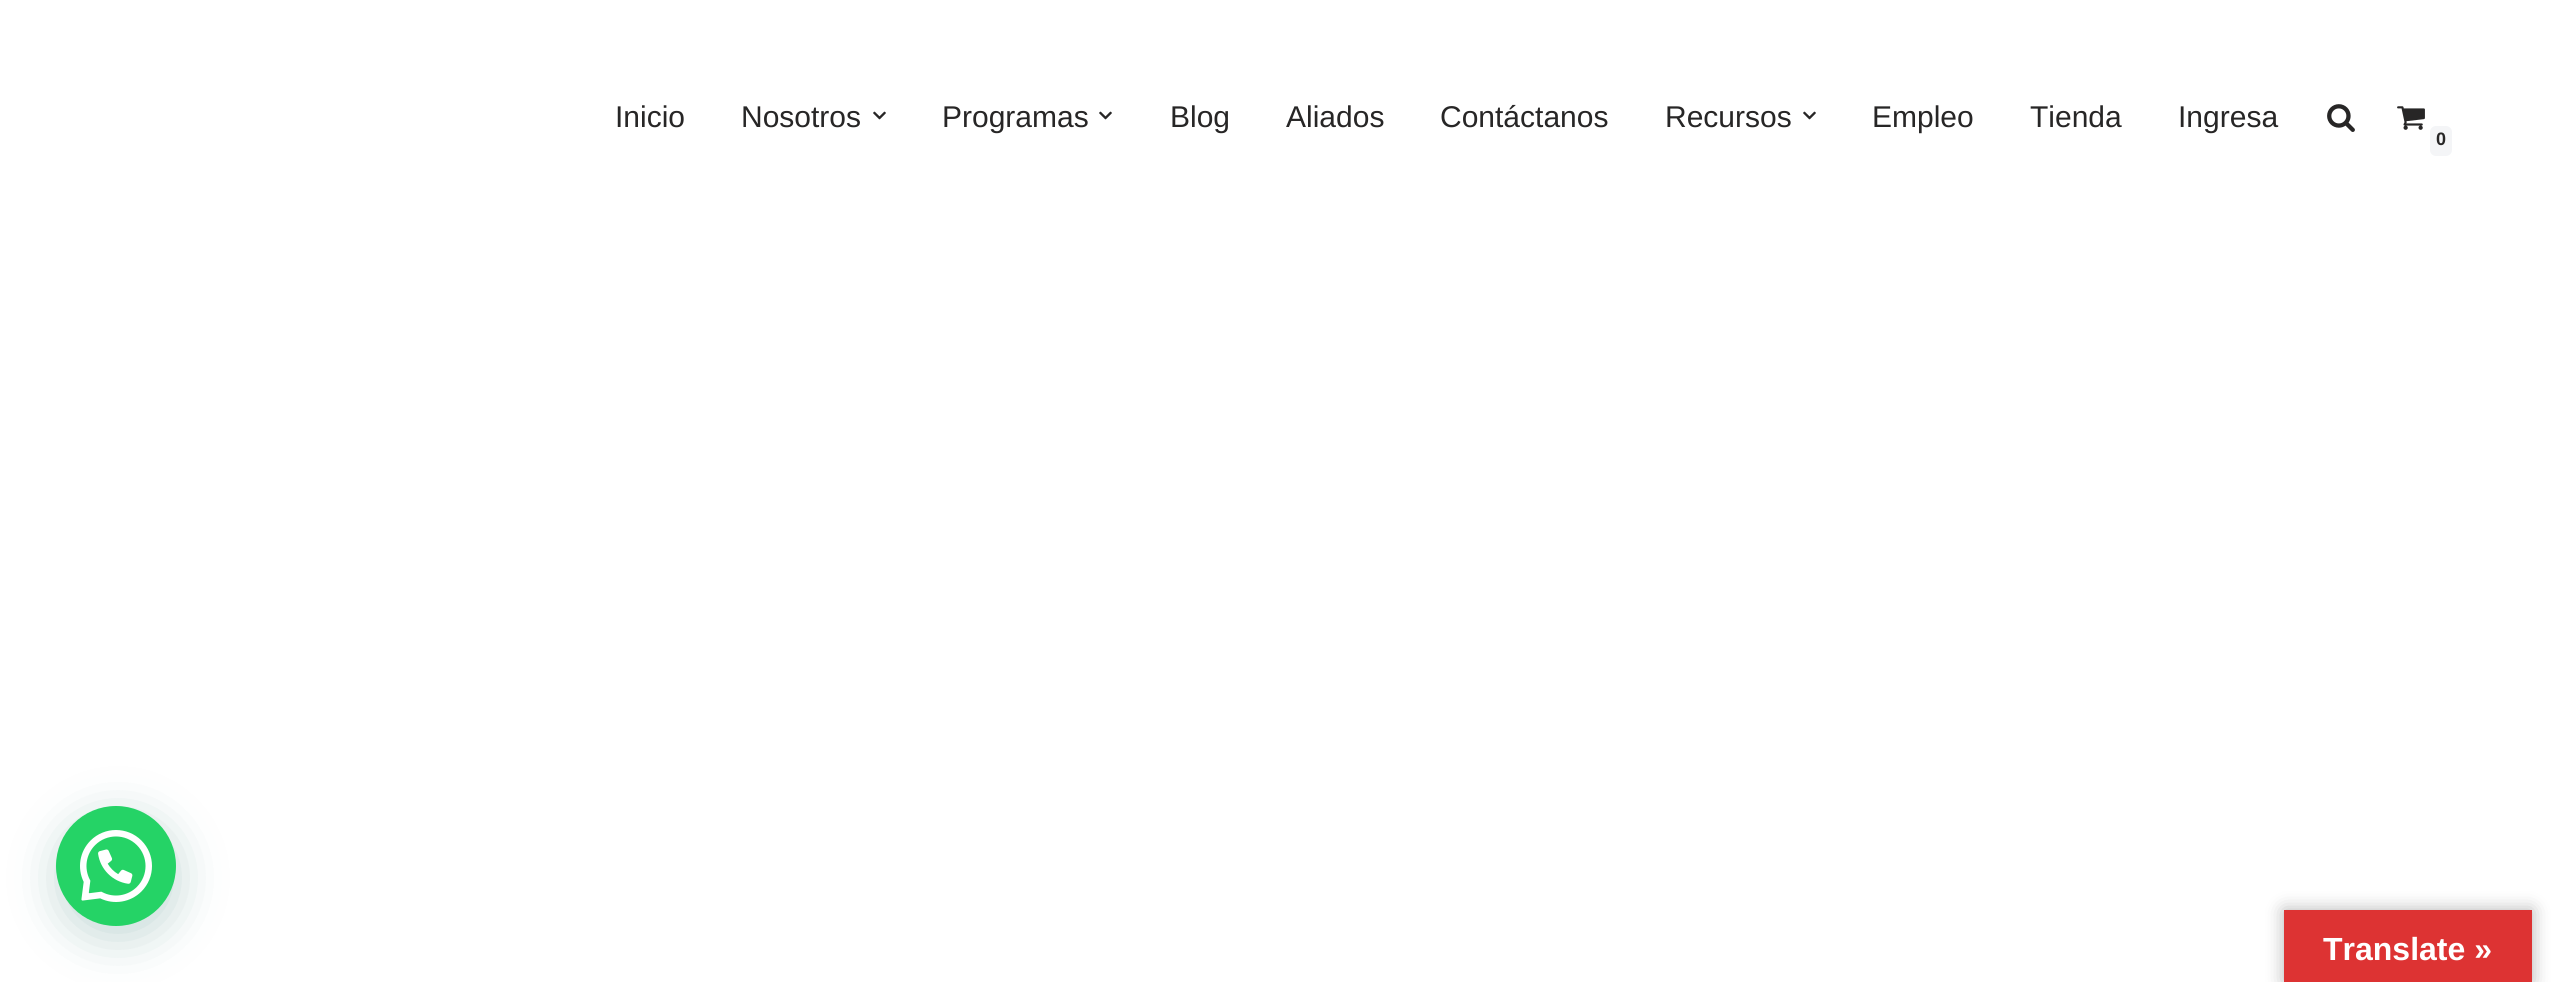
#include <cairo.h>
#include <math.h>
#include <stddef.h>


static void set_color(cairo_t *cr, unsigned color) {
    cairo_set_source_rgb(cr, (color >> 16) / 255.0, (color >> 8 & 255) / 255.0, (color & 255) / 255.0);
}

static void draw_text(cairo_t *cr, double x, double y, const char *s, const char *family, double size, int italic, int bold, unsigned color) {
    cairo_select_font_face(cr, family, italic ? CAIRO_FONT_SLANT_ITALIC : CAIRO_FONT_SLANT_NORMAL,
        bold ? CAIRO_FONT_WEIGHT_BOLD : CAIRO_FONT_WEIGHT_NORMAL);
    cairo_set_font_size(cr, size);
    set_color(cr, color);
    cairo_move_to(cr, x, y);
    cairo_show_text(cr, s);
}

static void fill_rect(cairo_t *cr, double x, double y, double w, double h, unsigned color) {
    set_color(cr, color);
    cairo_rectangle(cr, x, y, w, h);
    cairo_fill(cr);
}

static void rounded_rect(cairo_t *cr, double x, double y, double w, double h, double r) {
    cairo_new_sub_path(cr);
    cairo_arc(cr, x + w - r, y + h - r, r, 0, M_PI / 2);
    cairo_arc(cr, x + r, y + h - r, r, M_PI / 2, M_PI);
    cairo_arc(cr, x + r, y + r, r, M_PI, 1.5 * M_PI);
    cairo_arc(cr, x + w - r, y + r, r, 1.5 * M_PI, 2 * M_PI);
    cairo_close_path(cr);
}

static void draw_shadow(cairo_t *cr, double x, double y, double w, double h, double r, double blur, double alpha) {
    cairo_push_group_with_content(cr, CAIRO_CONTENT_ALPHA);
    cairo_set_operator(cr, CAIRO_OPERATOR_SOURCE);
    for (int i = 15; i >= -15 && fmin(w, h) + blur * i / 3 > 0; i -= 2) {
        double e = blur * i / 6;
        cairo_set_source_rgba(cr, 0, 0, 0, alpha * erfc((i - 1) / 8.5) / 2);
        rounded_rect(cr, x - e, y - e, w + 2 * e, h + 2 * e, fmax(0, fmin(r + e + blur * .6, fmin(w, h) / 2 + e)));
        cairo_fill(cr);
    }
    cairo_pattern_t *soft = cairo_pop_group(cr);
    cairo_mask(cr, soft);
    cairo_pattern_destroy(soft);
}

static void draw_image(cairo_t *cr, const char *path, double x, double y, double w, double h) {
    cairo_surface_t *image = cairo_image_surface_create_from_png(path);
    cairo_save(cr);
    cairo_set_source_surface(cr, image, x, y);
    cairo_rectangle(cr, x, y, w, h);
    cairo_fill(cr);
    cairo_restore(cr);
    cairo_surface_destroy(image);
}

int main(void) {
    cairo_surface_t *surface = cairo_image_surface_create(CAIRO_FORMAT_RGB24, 2572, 982);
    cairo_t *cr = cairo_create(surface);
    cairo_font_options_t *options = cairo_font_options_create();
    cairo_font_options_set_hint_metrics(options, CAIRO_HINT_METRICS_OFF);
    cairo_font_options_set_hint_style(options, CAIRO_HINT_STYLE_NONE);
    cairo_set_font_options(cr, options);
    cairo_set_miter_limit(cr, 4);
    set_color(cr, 0xFFFFFF);
    cairo_paint(cr);
    draw_text(cr, 615, 127, "Inicio", "Liberation Sans", 30, 0, 0, 0x272626);
    draw_text(cr, 741, 127, "Nosotros", "Liberation Sans", 30, 0, 0, 0x272626);
    draw_image(cr, "assets/img1.png", 873, 111, 13, 9);
    draw_text(cr, 942, 127, "Programas", "Liberation Sans", 30, 0, 0, 0x272626);
    draw_image(cr, "assets/img1.png", 1099, 111, 13, 9);
    draw_text(cr, 1170, 127, "Blog", "Liberation Sans", 30, 0, 0, 0x272626);
    draw_text(cr, 1286, 127, "Aliados", "Liberation Sans", 30, 0, 0, 0x272626);
    draw_text(cr, 1440, 127, "Contáctanos", "Liberation Sans", 30, 0, 0, 0x272626);
    draw_text(cr, 1665, 127, "Recursos", "Liberation Sans", 30, 0, 0, 0x272626);
    draw_image(cr, "assets/img1.png", 1803, 111, 13, 9);
    draw_text(cr, 1872, 127, "Empleo", "Liberation Sans", 30, 0, 0, 0x272626);
    draw_text(cr, 2030, 127, "Tienda", "Liberation Sans", 30, 0, 0, 0x272626);
    draw_text(cr, 2178, 127, "Ingresa", "Liberation Sans", 30, 0, 0, 0x272626);
    draw_image(cr, "assets/img2.png", 2327, 104, 28, 28);
    draw_image(cr, "assets/img3.png", 2397, 106, 28, 24);
    set_color(cr, 0xF4F5F7);
    rounded_rect(cr, 2430, 126, 22, 30, 6);
    cairo_fill(cr);
    draw_text(cr, 2436, 145, "0", "Liberation Sans", 18, 0, 1, 0x272626);
    set_color(cr, 0x075E54);
    draw_shadow(cr, 58, 818, 120, 120, 60, 24, 0.24);
    set_color(cr, 0x25D366);
    cairo_arc(cr, 116, 866, 60, 0, 2 * M_PI);
    cairo_fill(cr);
    draw_image(cr, "assets/img4.png", 80, 830, 72, 72);
    set_color(cr, 0x000000);
    draw_shadow(cr, 2284, 910, 248, 72, 0, 9, 0.3);
    fill_rect(cr, 2284, 910, 248, 72, 0xDD3333);
    draw_text(cr, 2323, 960, "Translate »", "Liberation Sans", 32, 0, 1, 0xFFFFFF);
    cairo_surface_write_to_png(surface, "output.png");
    cairo_font_options_destroy(options);
    cairo_destroy(cr);
    cairo_surface_destroy(surface);
    return 0;
}
